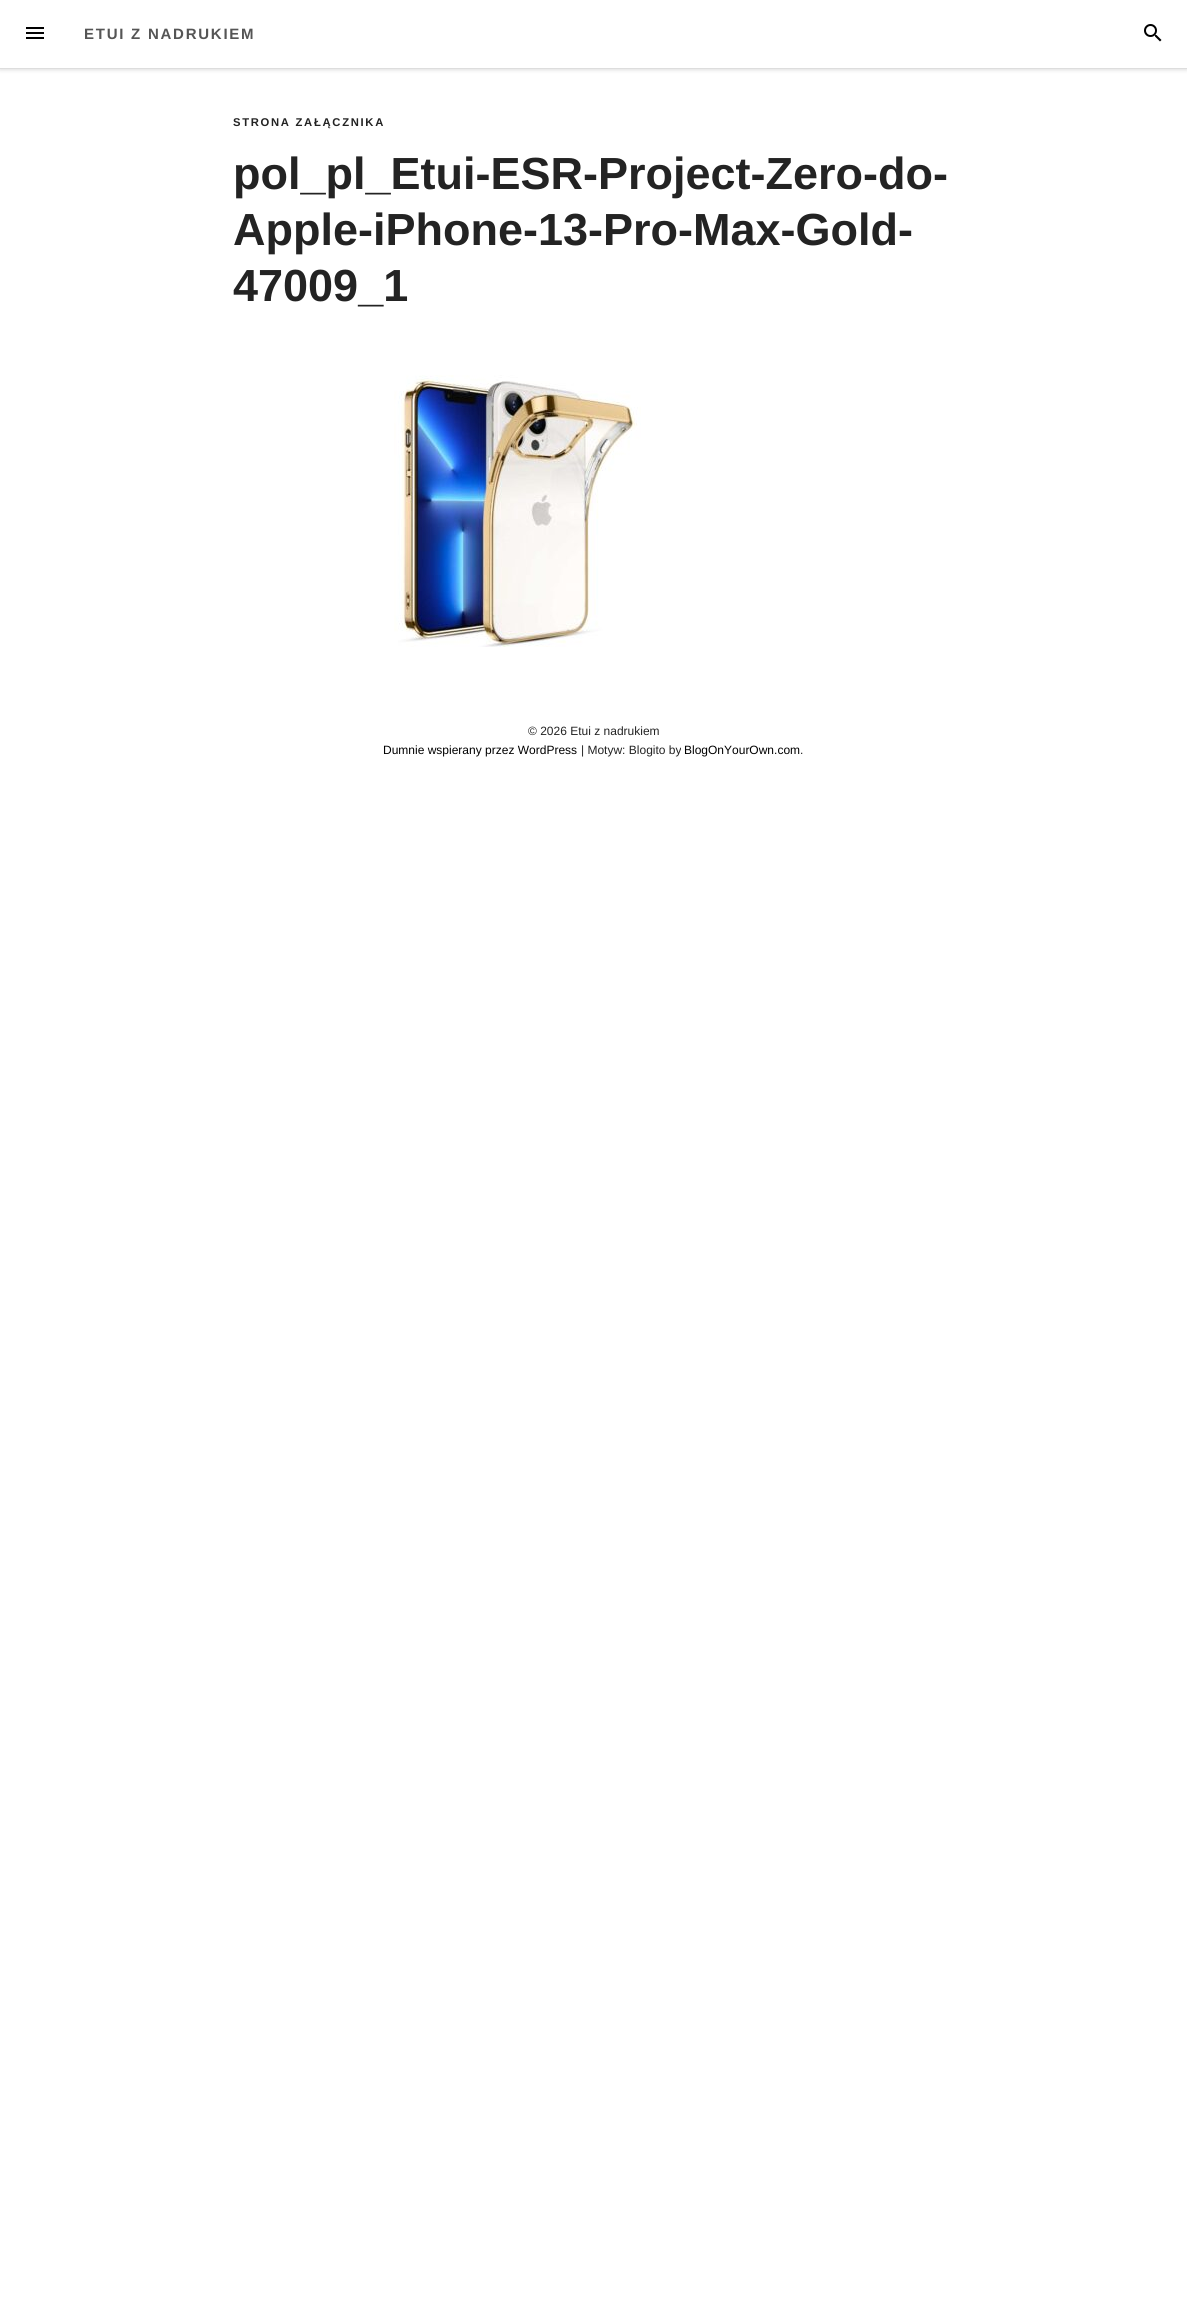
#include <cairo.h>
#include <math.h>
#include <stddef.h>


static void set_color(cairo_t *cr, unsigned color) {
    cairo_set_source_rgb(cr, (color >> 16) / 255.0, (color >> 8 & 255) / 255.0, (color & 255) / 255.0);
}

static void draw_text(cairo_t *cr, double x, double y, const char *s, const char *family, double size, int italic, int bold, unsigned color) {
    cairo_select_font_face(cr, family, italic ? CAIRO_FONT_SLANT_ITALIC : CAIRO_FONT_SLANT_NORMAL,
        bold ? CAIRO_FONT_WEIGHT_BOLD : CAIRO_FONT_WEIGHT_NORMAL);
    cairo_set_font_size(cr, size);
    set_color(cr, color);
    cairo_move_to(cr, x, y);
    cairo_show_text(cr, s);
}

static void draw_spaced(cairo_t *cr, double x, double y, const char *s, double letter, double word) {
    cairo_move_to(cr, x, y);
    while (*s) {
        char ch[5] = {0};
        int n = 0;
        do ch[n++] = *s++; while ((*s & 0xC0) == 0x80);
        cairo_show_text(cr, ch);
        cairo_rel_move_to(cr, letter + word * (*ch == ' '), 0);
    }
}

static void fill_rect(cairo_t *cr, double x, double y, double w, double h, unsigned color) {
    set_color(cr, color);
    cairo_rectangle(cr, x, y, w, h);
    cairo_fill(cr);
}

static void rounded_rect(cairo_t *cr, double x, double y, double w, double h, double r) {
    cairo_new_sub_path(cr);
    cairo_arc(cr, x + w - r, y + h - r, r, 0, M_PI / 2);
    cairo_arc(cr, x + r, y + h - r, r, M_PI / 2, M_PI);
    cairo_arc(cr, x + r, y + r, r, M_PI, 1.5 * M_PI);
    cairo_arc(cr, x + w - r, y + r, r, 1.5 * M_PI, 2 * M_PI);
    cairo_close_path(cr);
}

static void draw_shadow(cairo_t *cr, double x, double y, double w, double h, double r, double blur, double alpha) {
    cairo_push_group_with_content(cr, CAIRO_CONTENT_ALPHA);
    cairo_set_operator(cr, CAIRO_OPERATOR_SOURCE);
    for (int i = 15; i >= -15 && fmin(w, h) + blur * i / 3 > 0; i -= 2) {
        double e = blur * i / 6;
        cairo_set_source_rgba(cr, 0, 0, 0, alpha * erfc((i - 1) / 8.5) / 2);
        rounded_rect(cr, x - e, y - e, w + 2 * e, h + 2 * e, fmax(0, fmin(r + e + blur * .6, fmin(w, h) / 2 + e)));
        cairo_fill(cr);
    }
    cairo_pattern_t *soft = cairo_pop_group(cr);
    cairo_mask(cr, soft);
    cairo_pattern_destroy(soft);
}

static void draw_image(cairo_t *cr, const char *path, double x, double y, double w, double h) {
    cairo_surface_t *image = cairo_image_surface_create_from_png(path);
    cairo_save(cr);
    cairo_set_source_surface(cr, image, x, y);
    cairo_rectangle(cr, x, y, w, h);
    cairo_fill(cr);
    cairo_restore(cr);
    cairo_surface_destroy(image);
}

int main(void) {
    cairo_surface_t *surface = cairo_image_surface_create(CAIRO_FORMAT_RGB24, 1187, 2320);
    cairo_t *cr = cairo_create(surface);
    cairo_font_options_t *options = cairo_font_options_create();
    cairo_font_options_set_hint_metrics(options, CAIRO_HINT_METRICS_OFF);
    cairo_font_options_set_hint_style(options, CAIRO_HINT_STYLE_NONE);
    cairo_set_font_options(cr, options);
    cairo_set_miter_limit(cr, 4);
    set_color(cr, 0xFFFFFF);
    cairo_paint(cr);
    cairo_save(cr);
    cairo_rectangle(cr, 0, 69, 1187, 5);
    cairo_clip(cr);
    set_color(cr, 0xDDDDDD);
    draw_shadow(cr, 0, 1, 1187, 69, 0, 2, 1);
    cairo_restore(cr);
    fill_rect(cr, 0, 68, 1187, 1, 0xDDDDDD);
    draw_image(cr, "assets/img1.png", 26, 27, 18, 12);
    cairo_select_font_face(cr, "Liberation Sans", CAIRO_FONT_SLANT_NORMAL, CAIRO_FONT_WEIGHT_BOLD);
    cairo_set_font_size(cr, 15);
    set_color(cr, 0x555555);
    draw_spaced(cr, 84, 39, "ETUI Z NADRUKIEM", 1.75, 0);
    draw_image(cr, "assets/img2.png", 1144, 24, 18, 18);
    cairo_set_font_size(cr, 11.25);
    set_color(cr, 0x232323);
    draw_spaced(cr, 233, 126, "STRONA ZAŁĄCZNIKA", 1.7, 0);
    draw_text(cr, 233, 189, "pol_pl_Etui-ESR-Project-Zero-do-", "Liberation Sans", 45, 0, 1, 0x232323);
    draw_text(cr, 233, 245, "Apple-iPhone-13-Pro-Max-Gold-", "Liberation Sans", 45, 0, 1, 0x232323);
    draw_text(cr, 233, 301, "47009_1", "Liberation Sans", 45, 0, 1, 0x232323);
    draw_image(cr, "assets/img3.png", 394, 375, 247, 272);
    draw_text(cr, 528, 735, "© 2026 Etui z nadrukiem", "Liberation Sans", 12, 0, 0, 0x232323);
    draw_text(cr, 383, 754, "Dumnie wspierany przez WordPress", "Liberation Sans", 12, 0, 0, 0x000000);
    draw_text(cr, 581, 754, "| Motyw: Blogito by", "Liberation Sans", 12, 0, 0, 0x232323);
    draw_text(cr, 684, 754, "BlogOnYourOwn.com", "Liberation Sans", 12, 0, 0, 0x000000);
    draw_text(cr, 800, 754, ".", "Liberation Sans", 12, 0, 0, 0x232323);
    cairo_surface_write_to_png(surface, "output.png");
    cairo_font_options_destroy(options);
    cairo_destroy(cr);
    cairo_surface_destroy(surface);
    return 0;
}
